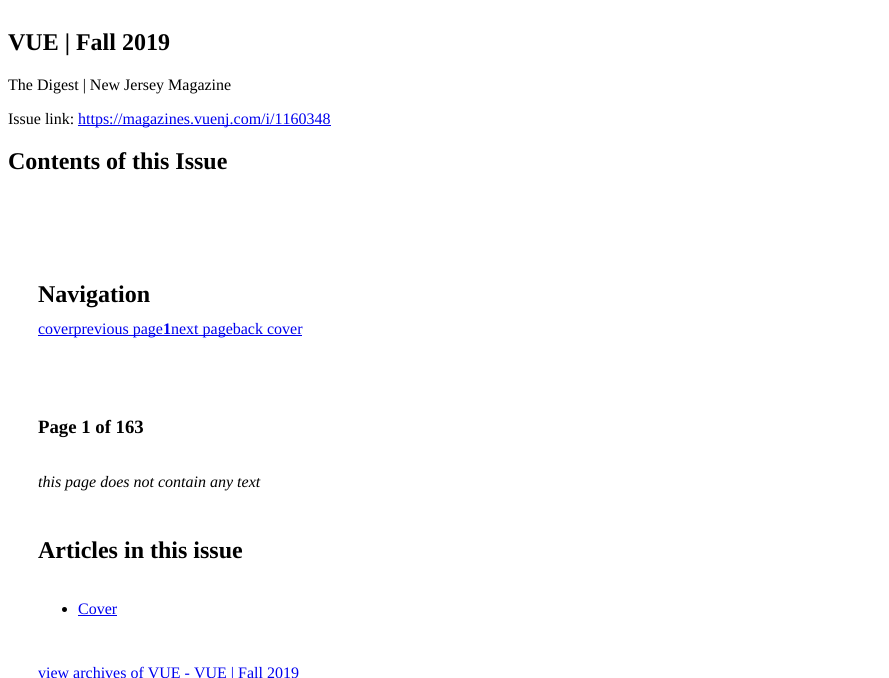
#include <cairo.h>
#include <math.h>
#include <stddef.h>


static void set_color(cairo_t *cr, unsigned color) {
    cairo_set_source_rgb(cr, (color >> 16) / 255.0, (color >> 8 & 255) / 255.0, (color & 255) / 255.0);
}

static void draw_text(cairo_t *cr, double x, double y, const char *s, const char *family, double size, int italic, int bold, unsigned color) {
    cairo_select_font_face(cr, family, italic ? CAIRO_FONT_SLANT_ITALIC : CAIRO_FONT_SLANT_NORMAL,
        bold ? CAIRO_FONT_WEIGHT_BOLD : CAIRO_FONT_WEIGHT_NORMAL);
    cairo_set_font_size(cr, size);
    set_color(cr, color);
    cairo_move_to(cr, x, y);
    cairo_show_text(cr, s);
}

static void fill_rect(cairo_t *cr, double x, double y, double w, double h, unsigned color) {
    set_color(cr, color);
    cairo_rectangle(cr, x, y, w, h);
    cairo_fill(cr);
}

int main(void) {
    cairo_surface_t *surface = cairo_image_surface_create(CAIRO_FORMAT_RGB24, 889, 678);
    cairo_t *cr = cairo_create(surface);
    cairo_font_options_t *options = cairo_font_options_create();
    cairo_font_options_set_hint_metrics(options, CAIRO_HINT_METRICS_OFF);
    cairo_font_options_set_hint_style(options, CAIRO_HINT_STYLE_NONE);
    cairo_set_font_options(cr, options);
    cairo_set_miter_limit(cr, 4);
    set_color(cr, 0xFFFFFF);
    cairo_paint(cr);
    draw_text(cr, 8, 50, "VUE | Fall 2019", "Liberation Serif", 24, 0, 1, 0x000000);
    draw_text(cr, 8, 90, "The Digest | New Jersey Magazine", "Liberation Serif", 16, 0, 0, 0x000000);
    draw_text(cr, 8, 124, "Issue link:", "Liberation Serif", 16, 0, 0, 0x000000);
    fill_rect(cr, 78, 125, 253, 1, 0x0000EE);
    draw_text(cr, 78, 124, "https://magazines.vuenj.com/i/1160348", "Liberation Serif", 16, 0, 0, 0x0000EE);
    draw_text(cr, 8, 169, "Contents of this Issue", "Liberation Serif", 24, 0, 1, 0x000000);
    draw_text(cr, 38, 302, "Navigation", "Liberation Serif", 24, 0, 1, 0x000000);
    fill_rect(cr, 38, 335, 264, 1, 0x0000EE);
    draw_text(cr, 38, 334, "coverprevious page", "Liberation Serif", 16, 0, 0, 0x0000EE);
    draw_text(cr, 163, 334, "1", "Liberation Serif", 16, 0, 1, 0x0000EE);
    draw_text(cr, 171, 334, "next pageback cover", "Liberation Serif", 16, 0, 0, 0x0000EE);
    draw_text(cr, 38, 433, "Page 1 of 163", "Liberation Serif", 18.75, 0, 1, 0x000000);
    draw_text(cr, 38, 487, "this page does not contain any text", "Liberation Serif", 16, 1, 0, 0x000000);
    draw_text(cr, 38, 558, "Articles in this issue", "Liberation Serif", 24, 0, 1, 0x000000);
    cairo_new_path(cr);
    cairo_arc(cr, 64.5, 609.5, 2.5, 0, 2 * M_PI);
    cairo_fill(cr);
    draw_text(cr, 78, 614, "Cover", "Liberation Serif", 16, 0, 0, 0x0000EE);
    fill_rect(cr, 78, 615, 39, 1, 0x0000EE);
    draw_text(cr, 38, 678, "view archives of VUE - VUE | Fall 2019", "Liberation Serif", 16, 0, 0, 0x0000EE);
    cairo_surface_write_to_png(surface, "output.png");
    cairo_font_options_destroy(options);
    cairo_destroy(cr);
    cairo_surface_destroy(surface);
    return 0;
}
